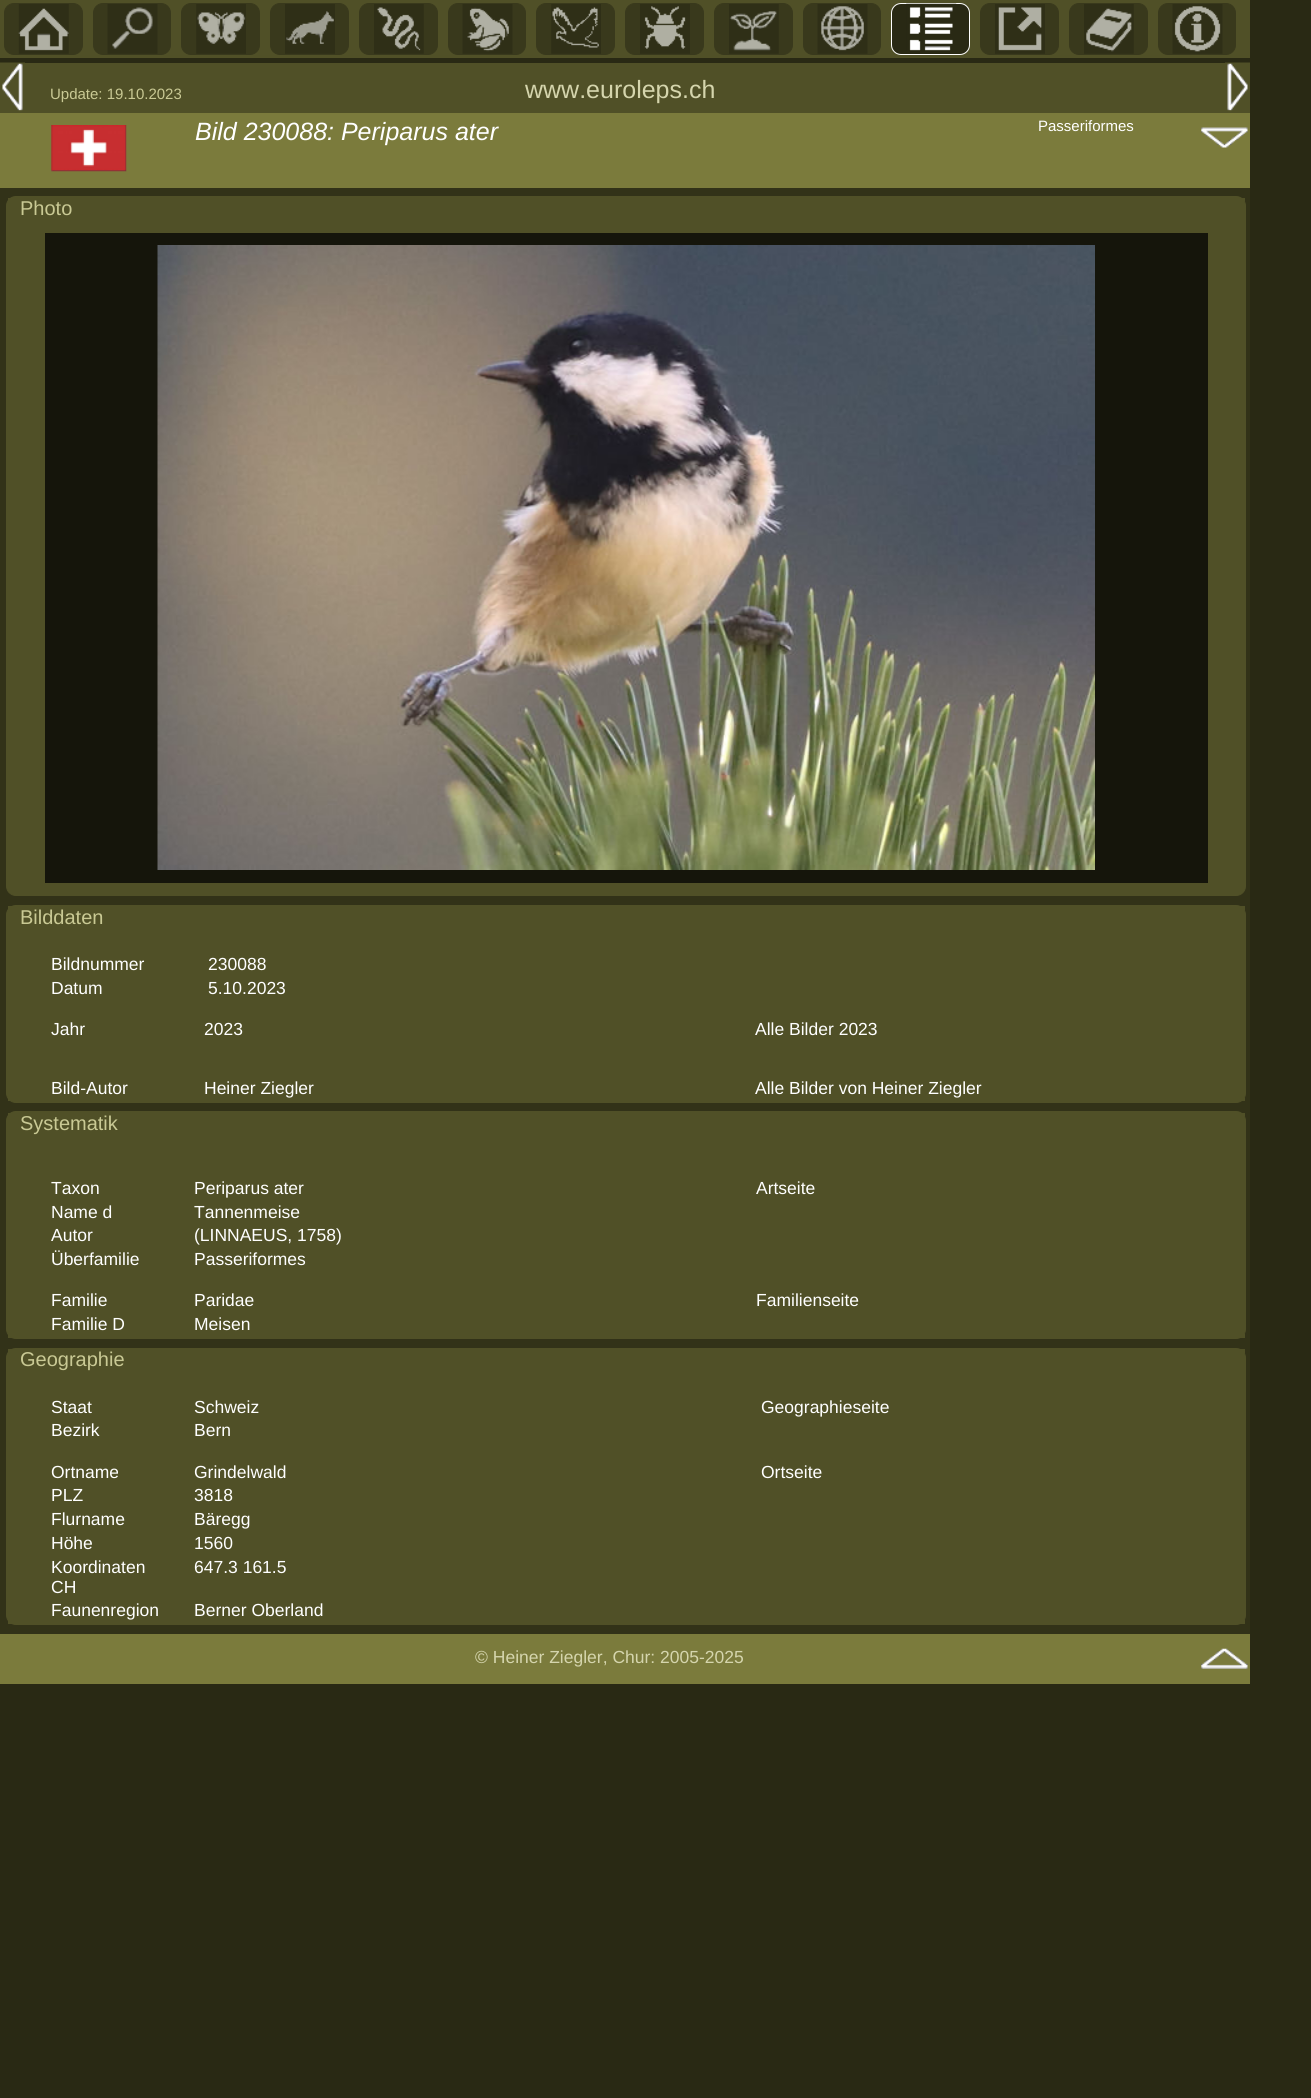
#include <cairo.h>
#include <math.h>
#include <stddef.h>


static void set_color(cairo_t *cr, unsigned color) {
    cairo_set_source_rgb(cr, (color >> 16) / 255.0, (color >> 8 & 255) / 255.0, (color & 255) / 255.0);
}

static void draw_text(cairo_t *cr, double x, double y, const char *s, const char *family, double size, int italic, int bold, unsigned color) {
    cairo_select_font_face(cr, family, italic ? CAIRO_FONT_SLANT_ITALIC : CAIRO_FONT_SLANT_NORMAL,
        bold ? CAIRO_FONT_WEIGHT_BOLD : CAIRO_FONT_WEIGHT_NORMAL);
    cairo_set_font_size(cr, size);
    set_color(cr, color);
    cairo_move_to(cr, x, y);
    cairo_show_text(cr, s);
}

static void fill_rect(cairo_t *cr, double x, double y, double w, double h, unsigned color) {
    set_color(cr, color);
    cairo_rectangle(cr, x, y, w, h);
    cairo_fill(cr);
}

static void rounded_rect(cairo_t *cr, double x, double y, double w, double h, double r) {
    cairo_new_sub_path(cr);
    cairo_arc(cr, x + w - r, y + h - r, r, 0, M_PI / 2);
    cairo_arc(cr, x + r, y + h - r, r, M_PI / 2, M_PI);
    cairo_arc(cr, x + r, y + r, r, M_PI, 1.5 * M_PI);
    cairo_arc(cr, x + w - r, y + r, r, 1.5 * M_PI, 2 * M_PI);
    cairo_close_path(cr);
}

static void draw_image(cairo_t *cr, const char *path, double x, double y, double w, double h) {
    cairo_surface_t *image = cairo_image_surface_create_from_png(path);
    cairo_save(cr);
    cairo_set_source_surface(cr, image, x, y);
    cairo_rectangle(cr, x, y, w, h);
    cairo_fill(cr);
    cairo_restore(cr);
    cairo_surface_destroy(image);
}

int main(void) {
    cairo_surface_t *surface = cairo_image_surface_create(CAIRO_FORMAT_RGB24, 1311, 2098);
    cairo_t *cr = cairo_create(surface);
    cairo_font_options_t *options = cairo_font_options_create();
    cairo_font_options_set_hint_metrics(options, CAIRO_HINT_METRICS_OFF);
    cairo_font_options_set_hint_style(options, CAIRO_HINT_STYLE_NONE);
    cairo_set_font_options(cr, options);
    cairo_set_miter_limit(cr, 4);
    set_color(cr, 0x292914);
    cairo_paint(cr);
    fill_rect(cr, 0, 0, 1250, 58, 0x505027);
    set_color(cr, 0x39391C);
    rounded_rect(cr, 4.5, 3.5, 78, 51, 9.5);
    cairo_fill_preserve(cr);
    cairo_set_line_width(cr, 1);
    cairo_stroke(cr);
    draw_image(cr, "assets/img1.png", 18, 4, 51, 50);
    rounded_rect(cr, 93.5, 3.5, 77, 51, 9.5);
    cairo_fill_preserve(cr);
    cairo_stroke(cr);
    draw_image(cr, "assets/img2.png", 107, 4, 51, 50);
    rounded_rect(cr, 181.5, 3.5, 78, 51, 9.5);
    cairo_fill_preserve(cr);
    cairo_stroke(cr);
    draw_image(cr, "assets/img3.png", 196, 4, 50, 50);
    rounded_rect(cr, 270.5, 3.5, 78, 51, 9.5);
    cairo_fill_preserve(cr);
    cairo_stroke(cr);
    draw_image(cr, "assets/img4.png", 285, 4, 50, 50);
    rounded_rect(cr, 359.5, 3.5, 78, 51, 9.5);
    cairo_fill_preserve(cr);
    cairo_stroke(cr);
    draw_image(cr, "assets/img5.png", 374, 4, 50, 50);
    rounded_rect(cr, 448.5, 3.5, 77, 51, 9.5);
    cairo_fill_preserve(cr);
    cairo_stroke(cr);
    draw_image(cr, "assets/img6.png", 462, 4, 51, 50);
    rounded_rect(cr, 536.5, 3.5, 78, 51, 9.5);
    cairo_fill_preserve(cr);
    cairo_stroke(cr);
    draw_image(cr, "assets/img7.png", 551, 4, 50, 50);
    rounded_rect(cr, 625.5, 3.5, 78, 51, 9.5);
    cairo_fill_preserve(cr);
    cairo_stroke(cr);
    draw_image(cr, "assets/img8.png", 640, 4, 50, 50);
    rounded_rect(cr, 714.5, 3.5, 78, 51, 9.5);
    cairo_fill_preserve(cr);
    cairo_stroke(cr);
    draw_image(cr, "assets/img9.png", 729, 4, 50, 50);
    rounded_rect(cr, 803.5, 3.5, 77, 51, 9.5);
    cairo_fill_preserve(cr);
    cairo_stroke(cr);
    draw_image(cr, "assets/img10.png", 817, 4, 51, 50);
    set_color(cr, 0x292914);
    rounded_rect(cr, 891.5, 3.5, 78, 51, 9.5);
    cairo_fill_preserve(cr);
    set_color(cr, 0xFFFFFF);
    cairo_stroke(cr);
    draw_image(cr, "assets/img11.png", 906, 3, 51, 48);
    set_color(cr, 0x39391C);
    rounded_rect(cr, 980.5, 3.5, 78, 51, 9.5);
    cairo_fill_preserve(cr);
    cairo_stroke(cr);
    draw_image(cr, "assets/img12.png", 995, 4, 50, 50);
    rounded_rect(cr, 1069.5, 3.5, 78, 51, 9.5);
    cairo_fill_preserve(cr);
    cairo_stroke(cr);
    draw_image(cr, "assets/img13.png", 1084, 4, 50, 50);
    rounded_rect(cr, 1158.5, 3.5, 77, 51, 9.5);
    cairo_fill_preserve(cr);
    cairo_stroke(cr);
    draw_image(cr, "assets/img14.png", 1172, 4, 51, 50);
    fill_rect(cr, 0, 63, 1250, 50, 0x505027);
    draw_image(cr, "assets/img15.png", 0, 62, 25, 49);
    draw_text(cr, 50, 99, "Update: 19.10.2023", "Liberation Sans", 15, 0, 0, 0xC9C994);
    draw_text(cr, 525, 98, "www.euroleps.ch", "Liberation Sans", 25, 0, 0, 0xD5D5AD);
    draw_image(cr, "assets/img16.png", 1225, 62, 25, 49);
    fill_rect(cr, 0, 113, 1250, 75, 0x7B7B3C);
    draw_image(cr, "assets/img17.png", 51, 125, 76, 47);
    draw_text(cr, 195, 140, "Bild 230088: Periparus ater", "Liberation Sans", 25, 1, 0, 0xFFFFFF);
    draw_text(cr, 1038, 131, "Passeriformes", "Liberation Sans", 15, 0, 0, 0xFFFFFF);
    draw_image(cr, "assets/img18.png", 1201, 127, 47, 21);
    fill_rect(cr, 0, 188, 1250, 1446, 0x323218);
    set_color(cr, 0x505027);
    rounded_rect(cr, 6.5, 196.5, 1239, 699, 9.5);
    cairo_fill_preserve(cr);
    cairo_stroke(cr);
    fill_rect(cr, 8, 198, 1237, 3, 0x505027);
    draw_text(cr, 20, 215, "Photo", "Liberation Sans", 20, 0, 0, 0xC9C994);
    fill_rect(cr, 45, 233, 1163, 650, 0x15150B);
    draw_image(cr, "assets/img19.png", 157, 245, 938, 625);
    set_color(cr, 0x505027);
    rounded_rect(cr, 6.5, 905.5, 1239, 197, 9.5);
    cairo_fill_preserve(cr);
    cairo_stroke(cr);
    fill_rect(cr, 8, 906, 1237, 4, 0x505027);
    draw_text(cr, 20, 924, "Bilddaten", "Liberation Sans", 20, 0, 0, 0xC9C994);
    fill_rect(cr, 8, 1098, 1237, 3, 0x505027);
    draw_text(cr, 51, 970, "Bildnummer", "Liberation Sans", 17.5, 0, 0, 0xFFFFFF);
    draw_text(cr, 208, 970, "230088", "Liberation Sans", 17.5, 0, 0, 0xFFFFFF);
    draw_text(cr, 51, 994, "Datum", "Liberation Sans", 17.5, 0, 0, 0xFFFFFF);
    draw_text(cr, 208, 994, "5.10.2023", "Liberation Sans", 17.5, 0, 0, 0xFFFFFF);
    draw_text(cr, 51, 1035, "Jahr", "Liberation Sans", 17.5, 0, 0, 0xFFFFFF);
    draw_text(cr, 204, 1035, "2023", "Liberation Sans", 17.5, 0, 0, 0xFFFFFF);
    draw_text(cr, 755, 1035, "Alle Bilder 2023", "Liberation Sans", 17.5, 0, 0, 0xFFFFFF);
    draw_text(cr, 51, 1094, "Bild-Autor", "Liberation Sans", 17.5, 0, 0, 0xFFFFFF);
    draw_text(cr, 204, 1094, "Heiner Ziegler", "Liberation Sans", 17.5, 0, 0, 0xFFFFFF);
    draw_text(cr, 755, 1094, "Alle Bilder von Heiner Ziegler", "Liberation Sans", 17.5, 0, 0, 0xFFFFFF);
    set_color(cr, 0x505027);
    rounded_rect(cr, 6.5, 1111.5, 1239, 227, 9.5);
    cairo_fill_preserve(cr);
    cairo_stroke(cr);
    fill_rect(cr, 8, 1113, 1237, 3, 0x505027);
    draw_text(cr, 20, 1130, "Systematik", "Liberation Sans", 20, 0, 0, 0xC9C994);
    fill_rect(cr, 8, 1334, 1237, 4, 0x505027);
    draw_text(cr, 51, 1194, "Taxon", "Liberation Sans", 17.5, 0, 0, 0xFFFFFF);
    draw_text(cr, 194, 1194, "Periparus ater", "Liberation Sans", 17.5, 0, 0, 0xFFFFFF);
    draw_text(cr, 756, 1194, "Artseite", "Liberation Sans", 17.5, 0, 0, 0xFFFFFF);
    draw_text(cr, 51, 1218, "Name d", "Liberation Sans", 17.5, 0, 0, 0xFFFFFF);
    draw_text(cr, 194, 1218, "Tannenmeise", "Liberation Sans", 17.5, 0, 0, 0xFFFFFF);
    draw_text(cr, 51, 1241, "Autor", "Liberation Sans", 17.5, 0, 0, 0xFFFFFF);
    draw_text(cr, 194, 1241, "(LINNAEUS, 1758)", "Liberation Sans", 17.5, 0, 0, 0xFFFFFF);
    draw_text(cr, 51, 1265, "Überfamilie", "Liberation Sans", 17.5, 0, 0, 0xFFFFFF);
    draw_text(cr, 194, 1265, "Passeriformes", "Liberation Sans", 17.5, 0, 0, 0xFFFFFF);
    draw_text(cr, 51, 1306, "Familie", "Liberation Sans", 17.5, 0, 0, 0xFFFFFF);
    draw_text(cr, 194, 1306, "Paridae", "Liberation Sans", 17.5, 0, 0, 0xFFFFFF);
    draw_text(cr, 756, 1306, "Familienseite", "Liberation Sans", 17.5, 0, 0, 0xFFFFFF);
    draw_text(cr, 51, 1330, "Familie D", "Liberation Sans", 17.5, 0, 0, 0xFFFFFF);
    draw_text(cr, 194, 1330, "Meisen", "Liberation Sans", 17.5, 0, 0, 0xFFFFFF);
    set_color(cr, 0x505027);
    rounded_rect(cr, 6.5, 1348.5, 1239, 276, 9.5);
    cairo_fill_preserve(cr);
    cairo_stroke(cr);
    fill_rect(cr, 8, 1349, 1237, 4, 0x505027);
    draw_text(cr, 20, 1366, "Geographie", "Liberation Sans", 20, 0, 0, 0xC9C994);
    fill_rect(cr, 8, 1620, 1237, 4, 0x505027);
    draw_text(cr, 51, 1413, "Staat", "Liberation Sans", 17.5, 0, 0, 0xFFFFFF);
    draw_text(cr, 194, 1413, "Schweiz", "Liberation Sans", 17.5, 0, 0, 0xFFFFFF);
    draw_text(cr, 761, 1413, "Geographieseite", "Liberation Sans", 17.5, 0, 0, 0xFFFFFF);
    draw_text(cr, 51, 1436, "Bezirk", "Liberation Sans", 17.5, 0, 0, 0xFFFFFF);
    draw_text(cr, 194, 1436, "Bern", "Liberation Sans", 17.5, 0, 0, 0xFFFFFF);
    draw_text(cr, 51, 1478, "Ortname", "Liberation Sans", 17.5, 0, 0, 0xFFFFFF);
    draw_text(cr, 194, 1478, "Grindelwald", "Liberation Sans", 17.5, 0, 0, 0xFFFFFF);
    draw_text(cr, 761, 1478, "Ortseite", "Liberation Sans", 17.5, 0, 0, 0xFFFFFF);
    draw_text(cr, 51, 1501, "PLZ", "Liberation Sans", 17.5, 0, 0, 0xFFFFFF);
    draw_text(cr, 194, 1501, "3818", "Liberation Sans", 17.5, 0, 0, 0xFFFFFF);
    draw_text(cr, 51, 1525, "Flurname", "Liberation Sans", 17.5, 0, 0, 0xFFFFFF);
    draw_text(cr, 194, 1525, "Bäregg", "Liberation Sans", 17.5, 0, 0, 0xFFFFFF);
    draw_text(cr, 51, 1549, "Höhe", "Liberation Sans", 17.5, 0, 0, 0xFFFFFF);
    draw_text(cr, 194, 1549, "1560", "Liberation Sans", 17.5, 0, 0, 0xFFFFFF);
    draw_text(cr, 51, 1573, "Koordinaten", "Liberation Sans", 17.5, 0, 0, 0xFFFFFF);
    draw_text(cr, 51, 1593, "CH", "Liberation Sans", 17.5, 0, 0, 0xFFFFFF);
    draw_text(cr, 194, 1573, "647.3 161.5", "Liberation Sans", 17.5, 0, 0, 0xFFFFFF);
    draw_text(cr, 51, 1616, "Faunenregion", "Liberation Sans", 17.5, 0, 0, 0xFFFFFF);
    draw_text(cr, 194, 1616, "Berner Oberland", "Liberation Sans", 17.5, 0, 0, 0xFFFFFF);
    fill_rect(cr, 0, 1634, 1250, 50, 0x7B7B3C);
    draw_text(cr, 475, 1663, "© Heiner Ziegler, Chur: 2005-2025", "Liberation Sans", 17.5, 0, 0, 0xD5D5AD);
    draw_image(cr, "assets/img20.png", 1201, 1648, 47, 21);
    cairo_surface_write_to_png(surface, "output.png");
    cairo_font_options_destroy(options);
    cairo_destroy(cr);
    cairo_surface_destroy(surface);
    return 0;
}
